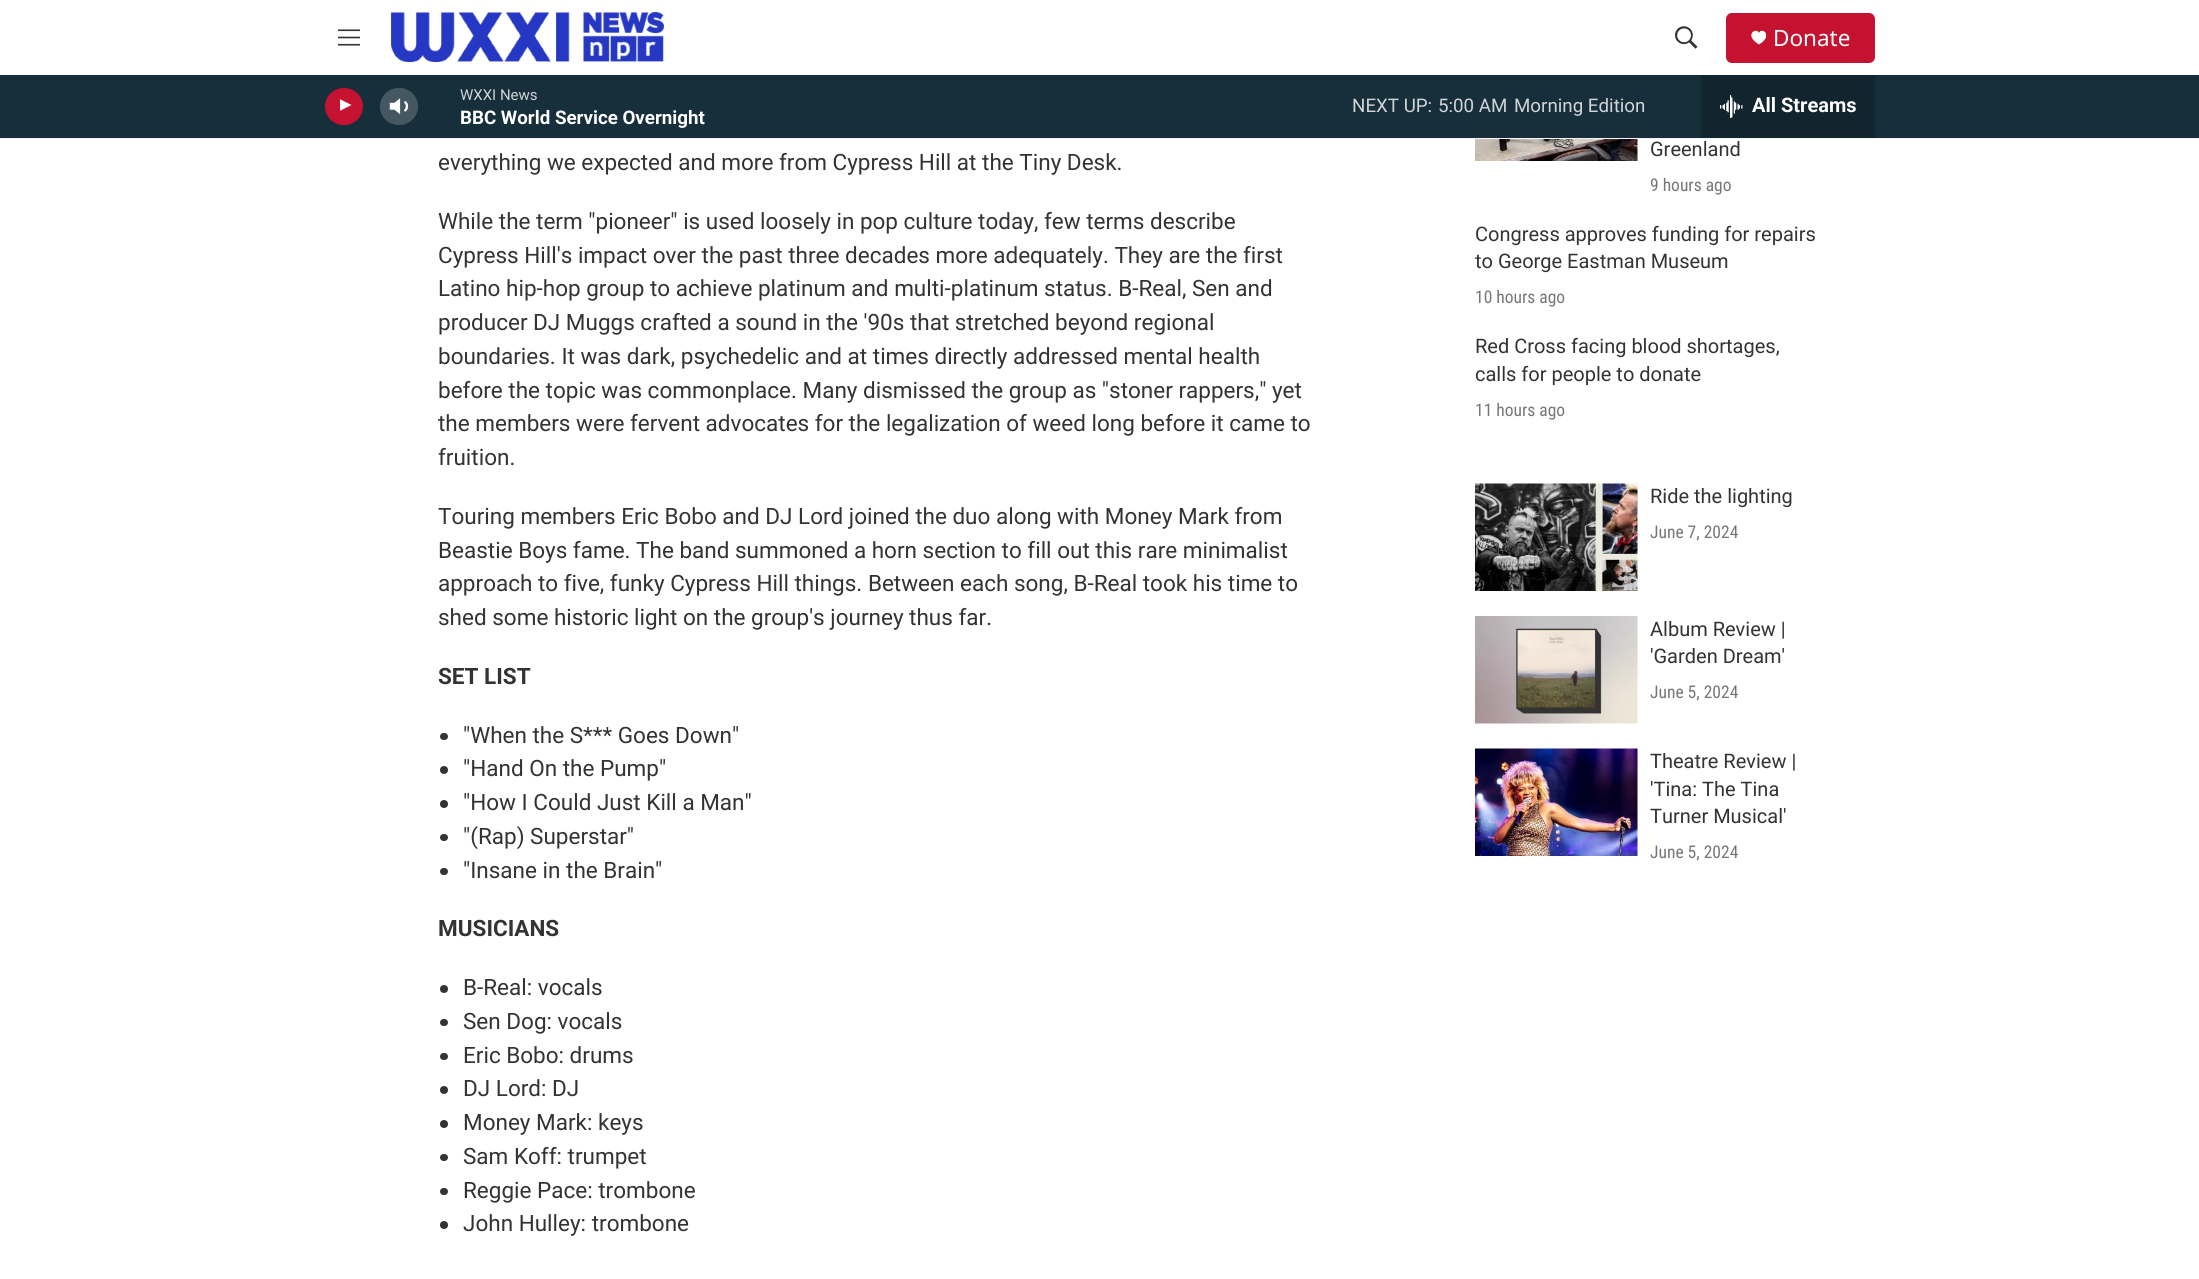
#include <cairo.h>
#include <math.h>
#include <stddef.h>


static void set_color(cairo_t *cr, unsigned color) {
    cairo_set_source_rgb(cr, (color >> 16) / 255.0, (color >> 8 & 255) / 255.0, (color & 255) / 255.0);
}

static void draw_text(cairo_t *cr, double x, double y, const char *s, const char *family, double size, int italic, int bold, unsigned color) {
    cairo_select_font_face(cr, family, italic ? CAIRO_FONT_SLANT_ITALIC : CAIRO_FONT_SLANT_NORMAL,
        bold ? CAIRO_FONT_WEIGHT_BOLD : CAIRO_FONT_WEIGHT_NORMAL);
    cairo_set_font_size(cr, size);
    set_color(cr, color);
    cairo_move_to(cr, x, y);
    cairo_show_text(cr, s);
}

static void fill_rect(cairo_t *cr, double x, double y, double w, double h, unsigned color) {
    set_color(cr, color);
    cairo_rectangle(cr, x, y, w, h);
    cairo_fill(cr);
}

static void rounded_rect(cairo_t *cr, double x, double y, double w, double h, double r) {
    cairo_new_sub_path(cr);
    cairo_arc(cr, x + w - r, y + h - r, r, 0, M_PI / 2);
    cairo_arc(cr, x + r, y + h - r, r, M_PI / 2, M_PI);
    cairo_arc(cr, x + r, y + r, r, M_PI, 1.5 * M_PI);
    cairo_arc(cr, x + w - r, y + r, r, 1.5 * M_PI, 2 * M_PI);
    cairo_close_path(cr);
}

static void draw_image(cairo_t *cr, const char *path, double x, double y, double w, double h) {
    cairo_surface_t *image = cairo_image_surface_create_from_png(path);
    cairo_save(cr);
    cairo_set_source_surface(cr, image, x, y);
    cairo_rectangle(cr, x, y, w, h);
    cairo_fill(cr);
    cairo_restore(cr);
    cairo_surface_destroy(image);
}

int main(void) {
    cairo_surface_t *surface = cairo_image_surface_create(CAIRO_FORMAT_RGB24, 2199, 1279);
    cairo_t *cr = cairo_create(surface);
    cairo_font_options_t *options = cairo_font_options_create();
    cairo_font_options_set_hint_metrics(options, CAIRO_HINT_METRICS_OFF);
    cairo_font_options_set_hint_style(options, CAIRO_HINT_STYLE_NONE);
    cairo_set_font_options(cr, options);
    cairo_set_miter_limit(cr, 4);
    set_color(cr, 0xFFFFFF);
    cairo_paint(cr);
    fill_rect(cr, 0, 138, 2199, 1, 0xF5F5F5);
    draw_image(cr, "assets/img1.png", 338, 29, 22, 17);
    draw_image(cr, "assets/img2.png", 391, 12, 273, 50);
    draw_image(cr, "assets/img3.png", 1675, 26, 23, 23);
    set_color(cr, 0xC41230);
    rounded_rect(cr, 1726, 13, 149, 50, 6);
    cairo_fill(cr);
    cairo_save(cr);
    cairo_rectangle(cr, 1751, 30, 15, 15);
    cairo_clip(cr);
    set_color(cr, 0xFFFFFF);
    cairo_new_path(cr);
    cairo_move_to(cr, 1759, 33);
    cairo_curve_to(cr, 1756.5, 26.5, 1743, 35, 1759, 44.5);
    cairo_curve_to(cr, 1774.5, 35, 1761, 26.5, 1759, 33);
    cairo_close_path(cr);
    cairo_fill(cr);
    cairo_restore(cr);
    draw_text(cr, 1773, 46, "Donate", "Noto Sans", 22.5, 0, 0, 0xFFFFFF);
    fill_rect(cr, 0, 75, 2199, 63, 0x172E3B);
    set_color(cr, 0xC41230);
    rounded_rect(cr, 325, 88, 38, 37, 18.5);
    cairo_fill(cr);
    cairo_save(cr);
    cairo_rectangle(cr, 340, 98, 14, 18);
    cairo_clip(cr);
    set_color(cr, 0xFFFFFF);
    cairo_new_path(cr);
    cairo_move_to(cr, 339.5, 99);
    cairo_line_to(cr, 351.5, 105);
    cairo_line_to(cr, 339.5, 111);
    cairo_close_path(cr);
    cairo_fill(cr);
    cairo_restore(cr);
    draw_image(cr, "assets/img4.png", 389, 98, 20, 17);
    cairo_set_source_rgba(cr, 1, 1, 1, 0.2);
    rounded_rect(cr, 380, 88, 38, 37, 18.5);
    cairo_fill(cr);
    draw_text(cr, 460, 100, "WXXI News", "Roboto", 15, 0, 0, 0xD1D5D8);
    draw_text(cr, 460, 124, "BBC World Service Overnight", "Roboto", 18.75, 0, 1, 0xFFFFFF);
    draw_text(cr, 1352, 112, "NEXT UP:", "Roboto", 18.75, 0, 0, 0xD1D5D8);
    draw_text(cr, 1438, 112, "5:00 AM", "Roboto", 18.75, 0, 0, 0xD1D5D8);
    draw_text(cr, 1514, 112, "Morning Edition", "Roboto", 18.75, 0, 0, 0xD1D5D8);
    fill_rect(cr, 1701, 75, 174, 63, 0x12252F);
    draw_image(cr, "assets/img5.png", 1720, 95, 23, 23);
    draw_text(cr, 1752, 112, "All Streams", "Roboto", 20, 0, 1, 0xFFFFFF);
    draw_text(cr, 438, 170, "everything we expected and more from Cypress Hill at the Tiny Desk.", "Roboto", 22.5, 0, 0, 0x333333);
    draw_text(cr, 438, 229, "While the term \"pioneer\" is used loosely in pop culture today, few terms describe", "Roboto", 22.5, 0, 0, 0x333333);
    draw_text(cr, 438, 263, "Cypress Hill's impact over the past three decades more adequately. They are the first", "Roboto", 22.5, 0, 0, 0x333333);
    draw_text(cr, 438, 296, "Latino hip-hop group to achieve platinum and multi-platinum status. B-Real, Sen and", "Roboto", 22.5, 0, 0, 0x333333);
    draw_text(cr, 438, 330, "producer DJ Muggs crafted a sound in the '90s that stretched beyond regional", "Roboto", 22.5, 0, 0, 0x333333);
    draw_text(cr, 438, 364, "boundaries. It was dark, psychedelic and at times directly addressed mental health", "Roboto", 22.5, 0, 0, 0x333333);
    draw_text(cr, 438, 398, "before the topic was commonplace. Many dismissed the group as \"stoner rappers,\" yet", "Roboto", 22.5, 0, 0, 0x333333);
    draw_text(cr, 438, 431, "the members were fervent advocates for the legalization of weed long before it came to", "Roboto", 22.5, 0, 0, 0x333333);
    draw_text(cr, 438, 465, "fruition.", "Roboto", 22.5, 0, 0, 0x333333);
    draw_text(cr, 438, 524, "Touring members Eric Bobo and DJ Lord joined the duo along with Money Mark from", "Roboto", 22.5, 0, 0, 0x333333);
    draw_text(cr, 438, 558, "Beastie Boys fame. The band summoned a horn section to fill out this rare minimalist", "Roboto", 22.5, 0, 0, 0x333333);
    draw_text(cr, 438, 591, "approach to five, funky Cypress Hill things. Between each song, B-Real took his time to", "Roboto", 22.5, 0, 0, 0x333333);
    draw_text(cr, 438, 625, "shed some historic light on the group's journey thus far.", "Roboto", 22.5, 0, 0, 0x333333);
    draw_text(cr, 438, 684, "SET LIST", "Roboto", 22.5, 0, 1, 0x333333);
    rounded_rect(cr, 440, 733, 8, 7, 3.5);
    cairo_fill(cr);
    draw_text(cr, 463, 743, "\"When the S*** Goes Down\"", "Roboto", 22.5, 0, 0, 0x333333);
    cairo_new_path(cr);
    cairo_arc(cr, 444, 770, 4, 0, 2 * M_PI);
    cairo_fill(cr);
    draw_text(cr, 463, 776, "\"Hand On the Pump\"", "Roboto", 22.5, 0, 0, 0x333333);
    cairo_new_path(cr);
    cairo_arc(cr, 444, 804, 4, 0, 2 * M_PI);
    cairo_fill(cr);
    draw_text(cr, 463, 810, "\"How I Could Just Kill a Man\"", "Roboto", 22.5, 0, 0, 0x333333);
    rounded_rect(cr, 440, 834, 8, 7, 3.5);
    cairo_fill(cr);
    draw_text(cr, 463, 844, "\"(Rap) Superstar\"", "Roboto", 22.5, 0, 0, 0x333333);
    rounded_rect(cr, 440, 868, 8, 7, 3.5);
    cairo_fill(cr);
    draw_text(cr, 463, 878, "\"Insane in the Brain\"", "Roboto", 22.5, 0, 0, 0x333333);
    draw_text(cr, 438, 936, "MUSICIANS", "Roboto", 22.5, 0, 1, 0x333333);
    cairo_new_path(cr);
    cairo_arc(cr, 444, 989, 4, 0, 2 * M_PI);
    cairo_fill(cr);
    draw_text(cr, 463, 995, "B-Real: vocals", "Roboto", 22.5, 0, 0, 0x333333);
    rounded_rect(cr, 440, 1019, 8, 7, 3.5);
    cairo_fill(cr);
    draw_text(cr, 463, 1029, "Sen Dog: vocals", "Roboto", 22.5, 0, 0, 0x333333);
    rounded_rect(cr, 440, 1053, 8, 7, 3.5);
    cairo_fill(cr);
    draw_text(cr, 463, 1063, "Eric Bobo: drums", "Roboto", 22.5, 0, 0, 0x333333);
    cairo_new_path(cr);
    cairo_arc(cr, 444, 1090, 4, 0, 2 * M_PI);
    cairo_fill(cr);
    draw_text(cr, 463, 1096, "DJ Lord: DJ", "Roboto", 22.5, 0, 0, 0x333333);
    cairo_new_path(cr);
    cairo_arc(cr, 444, 1124, 4, 0, 2 * M_PI);
    cairo_fill(cr);
    draw_text(cr, 463, 1130, "Money Mark: keys", "Roboto", 22.5, 0, 0, 0x333333);
    rounded_rect(cr, 440, 1154, 8, 7, 3.5);
    cairo_fill(cr);
    draw_text(cr, 463, 1164, "Sam Koff: trumpet", "Roboto", 22.5, 0, 0, 0x333333);
    rounded_rect(cr, 440, 1188, 8, 7, 3.5);
    cairo_fill(cr);
    draw_text(cr, 463, 1198, "Reggie Pace: trombone", "Roboto", 22.5, 0, 0, 0x333333);
    cairo_new_path(cr);
    cairo_arc(cr, 444, 1225, 4, 0, 2 * M_PI);
    cairo_fill(cr);
    draw_text(cr, 463, 1231, "John Hulley: trombone", "Roboto", 22.5, 0, 0, 0x333333);
    draw_image(cr, "assets/img6.png", 1475, 139, 163, 22);
    draw_text(cr, 1650, 156, "Greenland", "Roboto", 20, 0, 0, 0x333333);
    draw_text(cr, 1650, 191, "9 hours ago", "Roboto Condensed", 17.5, 0, 0, 0x767676);
    draw_text(cr, 1475, 241, "Congress approves funding for repairs", "Roboto", 20, 0, 0, 0x333333);
    draw_text(cr, 1475, 268, "to George Eastman Museum", "Roboto", 20, 0, 0, 0x333333);
    draw_text(cr, 1475, 303, "10 hours ago", "Roboto Condensed", 17.5, 0, 0, 0x767676);
    draw_text(cr, 1475, 353, "Red Cross facing blood shortages,", "Roboto", 20, 0, 0, 0x333333);
    draw_text(cr, 1475, 381, "calls for people to donate", "Roboto", 20, 0, 0, 0x333333);
    draw_text(cr, 1475, 416, "11 hours ago", "Roboto Condensed", 17.5, 0, 0, 0x767676);
    draw_image(cr, "assets/img7.png", 1475, 483, 163, 108);
    draw_text(cr, 1650, 503, "Ride the lighting", "Roboto", 20, 0, 0, 0x333333);
    draw_text(cr, 1650, 538, "June 7, 2024", "Roboto Condensed", 17.5, 0, 0, 0x767676);
    draw_image(cr, "assets/img8.png", 1475, 616, 163, 108);
    draw_text(cr, 1650, 636, "Album Review |", "Roboto", 20, 0, 0, 0x333333);
    draw_text(cr, 1650, 663, "'Garden Dream'", "Roboto", 20, 0, 0, 0x333333);
    draw_text(cr, 1650, 698, "June 5, 2024", "Roboto Condensed", 17.5, 0, 0, 0x767676);
    draw_image(cr, "assets/img9.png", 1475, 748, 163, 108);
    draw_text(cr, 1650, 768, "Theatre Review |", "Roboto", 20, 0, 0, 0x333333);
    draw_text(cr, 1650, 796, "'Tina: The Tina", "Roboto", 20, 0, 0, 0x333333);
    draw_text(cr, 1650, 823, "Turner Musical'", "Roboto", 20, 0, 0, 0x333333);
    draw_text(cr, 1650, 858, "June 5, 2024", "Roboto Condensed", 17.5, 0, 0, 0x767676);
    cairo_surface_write_to_png(surface, "output.png");
    cairo_font_options_destroy(options);
    cairo_destroy(cr);
    cairo_surface_destroy(surface);
    return 0;
}
